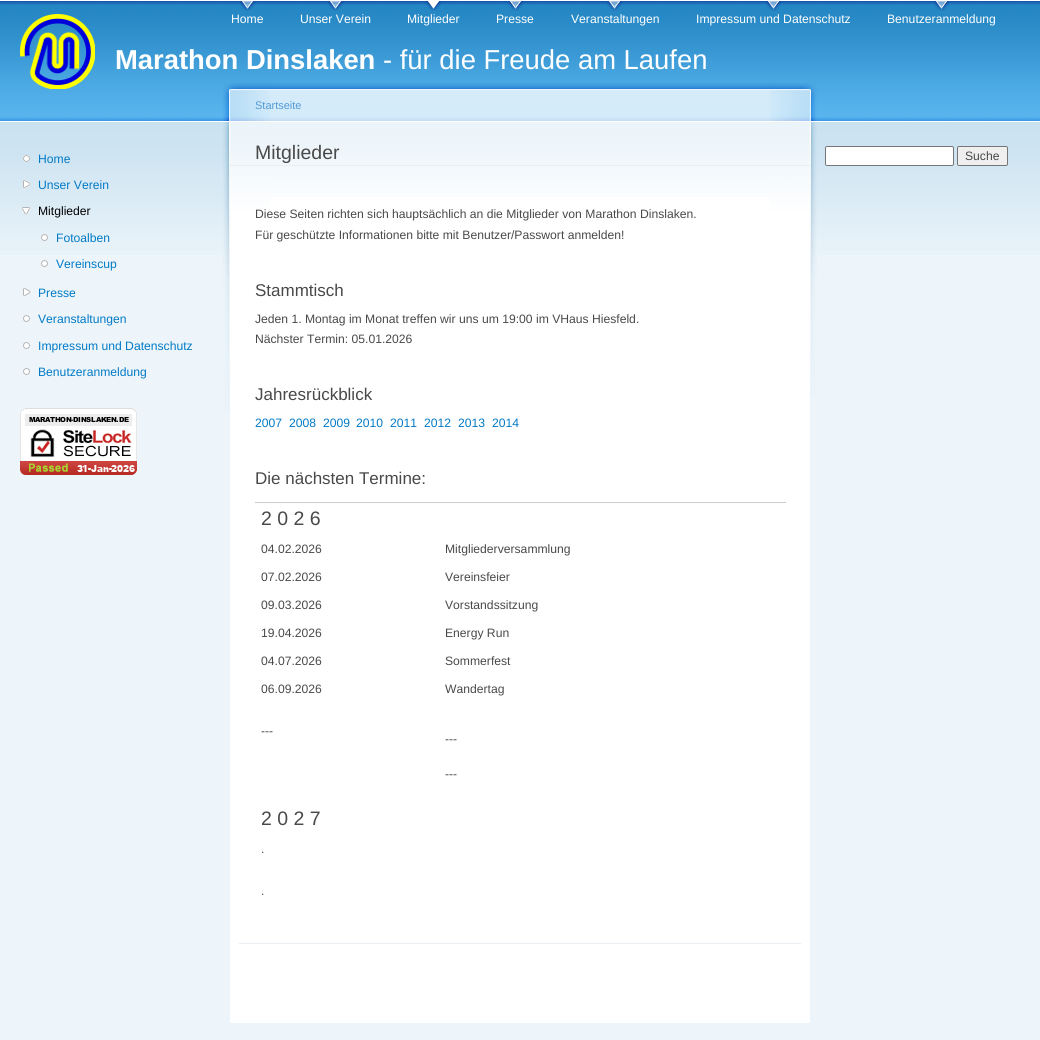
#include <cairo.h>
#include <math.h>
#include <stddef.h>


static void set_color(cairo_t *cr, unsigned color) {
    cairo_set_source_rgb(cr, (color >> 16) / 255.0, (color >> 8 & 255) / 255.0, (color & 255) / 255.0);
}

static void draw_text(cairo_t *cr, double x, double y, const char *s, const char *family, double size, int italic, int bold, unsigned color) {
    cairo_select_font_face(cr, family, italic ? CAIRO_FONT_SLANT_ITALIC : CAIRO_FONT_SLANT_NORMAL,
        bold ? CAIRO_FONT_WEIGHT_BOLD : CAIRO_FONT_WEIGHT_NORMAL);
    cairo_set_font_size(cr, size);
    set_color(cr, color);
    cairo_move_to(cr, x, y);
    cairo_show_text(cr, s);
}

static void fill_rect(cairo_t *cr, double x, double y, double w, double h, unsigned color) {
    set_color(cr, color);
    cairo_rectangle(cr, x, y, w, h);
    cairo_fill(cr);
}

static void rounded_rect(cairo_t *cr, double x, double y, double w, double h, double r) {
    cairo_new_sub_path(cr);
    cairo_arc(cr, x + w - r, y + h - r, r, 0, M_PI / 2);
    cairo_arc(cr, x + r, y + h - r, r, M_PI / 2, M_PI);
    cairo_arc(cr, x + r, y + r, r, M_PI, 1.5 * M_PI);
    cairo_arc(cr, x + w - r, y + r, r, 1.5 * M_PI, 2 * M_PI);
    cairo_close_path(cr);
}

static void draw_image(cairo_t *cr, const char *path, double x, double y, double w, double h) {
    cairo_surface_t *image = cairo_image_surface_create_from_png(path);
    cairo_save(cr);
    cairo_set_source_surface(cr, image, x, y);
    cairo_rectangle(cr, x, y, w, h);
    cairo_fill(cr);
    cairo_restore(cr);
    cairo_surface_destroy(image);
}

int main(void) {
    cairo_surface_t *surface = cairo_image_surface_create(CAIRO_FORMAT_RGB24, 1040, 1040);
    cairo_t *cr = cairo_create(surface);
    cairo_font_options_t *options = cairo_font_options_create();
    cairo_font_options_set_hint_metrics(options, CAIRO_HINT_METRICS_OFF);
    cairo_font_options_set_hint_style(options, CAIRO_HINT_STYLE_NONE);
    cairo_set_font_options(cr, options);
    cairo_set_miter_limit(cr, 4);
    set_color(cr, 0xEDF5FA);
    cairo_paint(cr);
    draw_image(cr, "assets/img1.png", 0, 0, 1040, 255);
    draw_image(cr, "assets/img2.png", 240, 1, 15, 10);
    draw_text(cr, 231, 23, "Home", "Liberation Sans", 12.15, 0, 0, 0xFFFFFF);
    draw_image(cr, "assets/img3.png", 328, 1, 16, 10);
    draw_text(cr, 300, 23, "Unser Verein", "Liberation Sans", 12.15, 0, 0, 0xFFFFFF);
    draw_image(cr, "assets/img4.png", 426, 1, 16, 10);
    draw_text(cr, 407, 23, "Mitglieder", "Liberation Sans", 12.15, 0, 0, 0xFFFFFF);
    draw_image(cr, "assets/img3.png", 508, 1, 16, 10);
    draw_text(cr, 496, 23, "Presse", "Liberation Sans", 12.15, 0, 0, 0xFFFFFF);
    draw_image(cr, "assets/img3.png", 607, 1, 16, 10);
    draw_text(cr, 571, 23, "Veranstaltungen", "Liberation Sans", 12.15, 0, 0, 0xFFFFFF);
    draw_image(cr, "assets/img3.png", 766, 1, 16, 10);
    draw_text(cr, 696, 23, "Impressum und Datenschutz", "Liberation Sans", 12.15, 0, 0, 0xFFFFFF);
    draw_image(cr, "assets/img2.png", 934, 1, 15, 10);
    draw_text(cr, 887, 23, "Benutzeranmeldung", "Liberation Sans", 12.15, 0, 0, 0xFFFFFF);
    draw_image(cr, "assets/img5.png", 20, 14, 75, 75);
    draw_text(cr, 115, 69, "Marathon Dinslaken", "Liberation Sans", 27.4, 0, 1, 0xFFFFFF);
    draw_text(cr, 383, 69, "- für die Freude am Laufen", "Liberation Sans", 27.4, 0, 0, 0xFFFFFF);
    draw_image(cr, "assets/img6.png", 23, 155, 7, 7);
    draw_text(cr, 38, 163, "Home", "Liberation Sans", 12.15, 0, 0, 0x027AC6);
    draw_image(cr, "assets/img7.png", 23, 179, 8, 10);
    draw_text(cr, 38, 189, "Unser Verein", "Liberation Sans", 12.15, 0, 0, 0x027AC6);
    draw_image(cr, "assets/img8.png", 21, 207, 10, 8);
    draw_text(cr, 38, 215, "Mitglieder", "Liberation Sans", 12.15, 0, 0, 0x000000);
    draw_image(cr, "assets/img9.png", 41, 234, 7, 7);
    draw_text(cr, 56, 242, "Fotoalben", "Liberation Sans", 12.15, 0, 0, 0x027AC6);
    draw_image(cr, "assets/img10.png", 41, 260, 7, 7);
    draw_text(cr, 56, 268, "Vereinscup", "Liberation Sans", 12.15, 0, 0, 0x027AC6);
    draw_image(cr, "assets/img11.png", 23, 287, 8, 10);
    draw_text(cr, 38, 297, "Presse", "Liberation Sans", 12.15, 0, 0, 0x027AC6);
    draw_image(cr, "assets/img10.png", 23, 315, 7, 7);
    draw_text(cr, 38, 323, "Veranstaltungen", "Liberation Sans", 12.15, 0, 0, 0x027AC6);
    draw_image(cr, "assets/img10.png", 23, 342, 7, 7);
    draw_text(cr, 38, 350, "Impressum und Datenschutz", "Liberation Sans", 12.15, 0, 0, 0x027AC6);
    draw_image(cr, "assets/img10.png", 23, 368, 7, 7);
    draw_text(cr, 38, 376, "Benutzeranmeldung", "Liberation Sans", 12.15, 0, 0, 0x027AC6);
    draw_image(cr, "assets/img12.png", 20, 408, 117, 67);
    fill_rect(cr, 230, 197, 580, 826, 0xFFFFFF);
    draw_image(cr, "assets/img13.png", 230, 80, 580, 117);
    draw_image(cr, "assets/img14.png", 770, 84, 47, 311);
    draw_image(cr, "assets/img15.png", 222, 84, 48, 326);
    draw_text(cr, 255, 109, "Startseite", "Liberation Sans", 11, 0, 0, 0x529AD6);
    fill_rect(cr, 229, 165, 582, 1, 0xE9EFF3);
    draw_text(cr, 255, 159, "Mitglieder", "Liberation Sans", 19.5, 0, 0, 0x494949);
    fill_rect(cr, 239, 943, 562, 1, 0xE9EFF3);
    draw_text(cr, 255, 218, "Diese Seiten richten sich hauptsächlich an die Mitglieder von Marathon Dinslaken.", "Liberation Sans", 12.15, 0, 0, 0x494949);
    draw_text(cr, 255, 239, "Für geschützte Informationen bitte mit Benutzer/Passwort anmelden!", "Liberation Sans", 12.15, 0, 0, 0x494949);
    draw_text(cr, 255, 296, "Stammtisch", "Liberation Sans", 17, 0, 0, 0x494949);
    draw_text(cr, 255, 323, "Jeden 1. Montag im Monat treffen wir uns um 19:00 im VHaus Hiesfeld.", "Liberation Sans", 12.15, 0, 0, 0x494949);
    draw_text(cr, 255, 343, "Nächster Termin: 05.01.2026", "Liberation Sans", 12.15, 0, 0, 0x494949);
    draw_text(cr, 255, 400, "Jahresrückblick", "Liberation Sans", 17, 0, 0, 0x494949);
    draw_text(cr, 255, 427, "2007", "Liberation Sans", 12.15, 0, 0, 0x027AC6);
    draw_text(cr, 289, 427, "2008", "Liberation Sans", 12.15, 0, 0, 0x027AC6);
    draw_text(cr, 323, 427, "2009", "Liberation Sans", 12.15, 0, 0, 0x027AC6);
    draw_text(cr, 356, 427, "2010", "Liberation Sans", 12.15, 0, 0, 0x027AC6);
    draw_text(cr, 390, 427, "2011", "Liberation Sans", 12.15, 0, 0, 0x027AC6);
    draw_text(cr, 424, 427, "2012", "Liberation Sans", 12.15, 0, 0, 0x027AC6);
    draw_text(cr, 458, 427, "2013", "Liberation Sans", 12.15, 0, 0, 0x027AC6);
    draw_text(cr, 492, 427, "2014", "Liberation Sans", 12.15, 0, 0, 0x027AC6);
    draw_text(cr, 255, 484, "Die nächsten Termine:", "Liberation Sans", 17, 0, 0, 0x494949);
    fill_rect(cr, 255, 502, 531, 1, 0xCCCCCC);
    draw_text(cr, 261, 525, "2 0 2 6", "Liberation Sans", 19.5, 0, 0, 0x494949);
    draw_text(cr, 261, 553, "04.02.2026", "Liberation Sans", 12.15, 0, 0, 0x494949);
    draw_text(cr, 445, 553, "Mitgliederversammlung", "Liberation Sans", 12.15, 0, 0, 0x494949);
    draw_text(cr, 261, 581, "07.02.2026", "Liberation Sans", 12.15, 0, 0, 0x494949);
    draw_text(cr, 445, 581, "Vereinsfeier", "Liberation Sans", 12.15, 0, 0, 0x494949);
    draw_text(cr, 261, 609, "09.03.2026", "Liberation Sans", 12.15, 0, 0, 0x494949);
    draw_text(cr, 445, 609, "Vorstandssitzung", "Liberation Sans", 12.15, 0, 0, 0x494949);
    draw_text(cr, 261, 637, "19.04.2026", "Liberation Sans", 12.15, 0, 0, 0x494949);
    draw_text(cr, 445, 637, "Energy Run", "Liberation Sans", 12.15, 0, 0, 0x494949);
    draw_text(cr, 261, 665, "04.07.2026", "Liberation Sans", 12.15, 0, 0, 0x494949);
    draw_text(cr, 445, 665, "Sommerfest", "Liberation Sans", 12.15, 0, 0, 0x494949);
    draw_text(cr, 261, 693, "06.09.2026", "Liberation Sans", 12.15, 0, 0, 0x494949);
    draw_text(cr, 445, 693, "Wandertag", "Liberation Sans", 12.15, 0, 0, 0x494949);
    draw_text(cr, 261, 735, "---", "Liberation Sans", 12.15, 0, 0, 0x494949);
    draw_text(cr, 445, 743, "---", "Liberation Sans", 12.15, 0, 0, 0x494949);
    draw_text(cr, 445, 778, "---", "Liberation Sans", 12.15, 0, 0, 0x494949);
    draw_text(cr, 261, 825, "2 0 2 7", "Liberation Sans", 19.5, 0, 0, 0x494949);
    draw_text(cr, 261, 853, ".", "Liberation Sans", 12.15, 0, 0, 0x494949);
    draw_text(cr, 261, 895, ".", "Liberation Sans", 12.15, 0, 0, 0x494949);
    set_color(cr, 0xFFFFFF);
    rounded_rect(cr, 825.5, 146.5, 128, 19, 1.5);
    cairo_fill_preserve(cr);
    set_color(cr, 0x767676);
    cairo_set_line_width(cr, 1);
    cairo_stroke(cr);
    set_color(cr, 0xEFEFEF);
    rounded_rect(cr, 957.5, 146.5, 50, 19, 1.5);
    cairo_fill_preserve(cr);
    set_color(cr, 0x767676);
    cairo_stroke(cr);
    draw_text(cr, 965, 160, "Suche", "Liberation Sans", 12.15, 0, 0, 0x494949);
    cairo_surface_write_to_png(surface, "output.png");
    cairo_font_options_destroy(options);
    cairo_destroy(cr);
    cairo_surface_destroy(surface);
    return 0;
}
